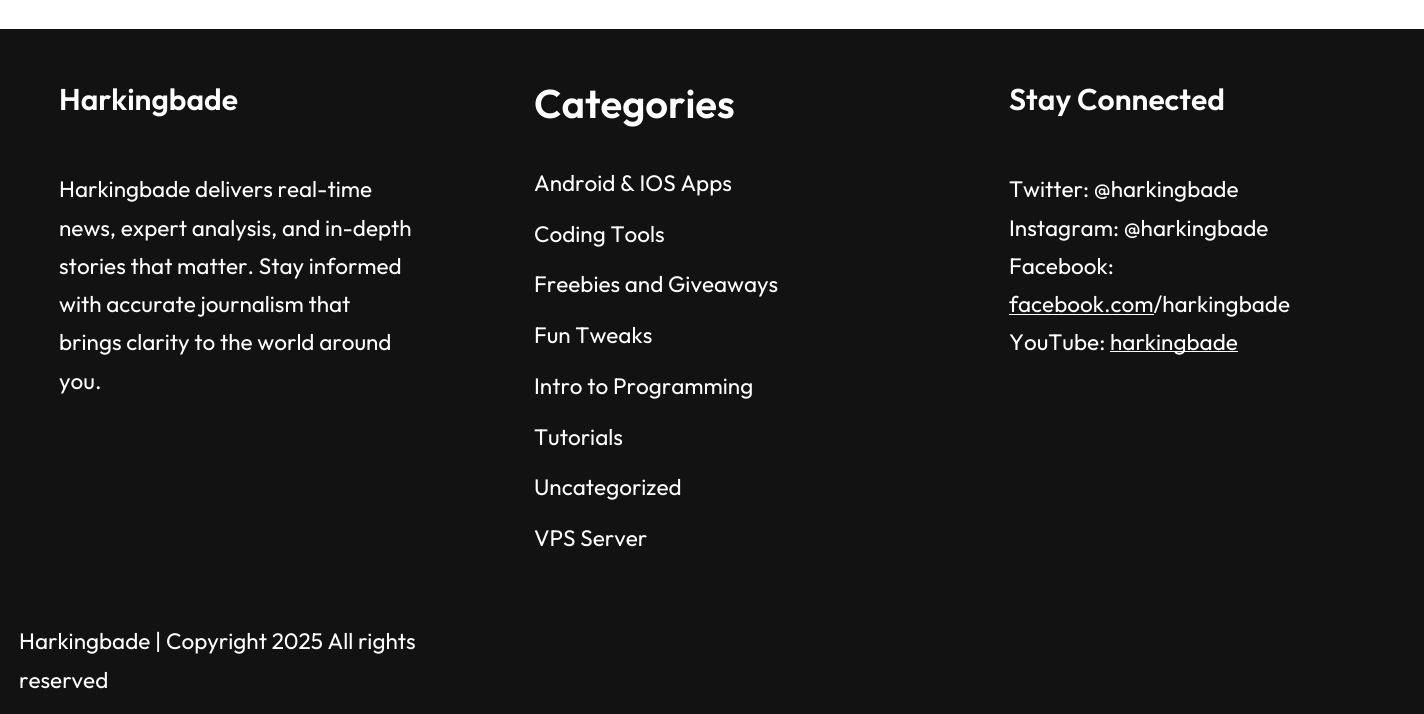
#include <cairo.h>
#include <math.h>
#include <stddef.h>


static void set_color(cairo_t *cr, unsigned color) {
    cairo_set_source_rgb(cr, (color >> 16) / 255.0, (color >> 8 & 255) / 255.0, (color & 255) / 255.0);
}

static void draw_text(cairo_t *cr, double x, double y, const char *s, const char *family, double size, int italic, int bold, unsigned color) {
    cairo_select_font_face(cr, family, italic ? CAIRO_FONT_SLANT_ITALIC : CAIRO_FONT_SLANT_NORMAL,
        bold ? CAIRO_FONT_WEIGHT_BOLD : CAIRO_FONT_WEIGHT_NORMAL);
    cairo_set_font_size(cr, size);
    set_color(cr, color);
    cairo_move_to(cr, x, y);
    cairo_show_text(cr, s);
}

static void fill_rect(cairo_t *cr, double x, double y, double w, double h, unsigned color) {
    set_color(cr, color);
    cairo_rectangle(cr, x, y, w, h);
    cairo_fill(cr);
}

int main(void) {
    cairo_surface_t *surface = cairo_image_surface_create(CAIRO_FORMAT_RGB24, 1424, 714);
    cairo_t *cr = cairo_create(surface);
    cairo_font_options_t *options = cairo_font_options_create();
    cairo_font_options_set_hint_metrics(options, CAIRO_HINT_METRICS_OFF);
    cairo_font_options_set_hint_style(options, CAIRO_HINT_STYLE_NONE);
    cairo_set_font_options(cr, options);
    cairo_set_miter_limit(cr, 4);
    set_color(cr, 0xFFFFFF);
    cairo_paint(cr);
    fill_rect(cr, 0, 29, 1424, 685, 0x121212);
    draw_text(cr, 59, 110, "Harkingbade", "Outfit Thin", 30, 0, 0, 0xFFFFFF);
    draw_text(cr, 59, 197, "Harkingbade delivers real-time", "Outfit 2 Thin", 22.5, 0, 0, 0xFFFFFF);
    draw_text(cr, 59, 236, "news, expert analysis, and in-depth", "Outfit 2 Thin", 22.5, 0, 0, 0xFFFFFF);
    draw_text(cr, 59, 274, "stories that matter. Stay informed", "Outfit 2 Thin", 22.5, 0, 0, 0xFFFFFF);
    draw_text(cr, 59, 312, "with accurate journalism that", "Outfit 2 Thin", 22.5, 0, 0, 0xFFFFFF);
    draw_text(cr, 59, 350, "brings clarity to the world around", "Outfit 2 Thin", 22.5, 0, 0, 0xFFFFFF);
    draw_text(cr, 59, 389, "you.", "Outfit 2 Thin", 22.5, 0, 0, 0xFFFFFF);
    draw_text(cr, 534, 118, "Categories", "Outfit Thin", 40, 0, 0, 0xFFFFFF);
    draw_text(cr, 534, 191, "Android & IOS Apps", "Outfit 2 Thin", 22.5, 0, 0, 0xFFFFFF);
    draw_text(cr, 534, 242, "Coding Tools", "Outfit 2 Thin", 22.5, 0, 0, 0xFFFFFF);
    draw_text(cr, 534, 292, "Freebies and Giveaways", "Outfit 2 Thin", 22.5, 0, 0, 0xFFFFFF);
    draw_text(cr, 534, 343, "Fun Tweaks", "Outfit 2 Thin", 22.5, 0, 0, 0xFFFFFF);
    draw_text(cr, 534, 394, "Intro to Programming", "Outfit 2 Thin", 22.5, 0, 0, 0xFFFFFF);
    draw_text(cr, 534, 445, "Tutorials", "Outfit 2 Thin", 22.5, 0, 0, 0xFFFFFF);
    draw_text(cr, 534, 495, "Uncategorized", "Outfit 2 Thin", 22.5, 0, 0, 0xFFFFFF);
    draw_text(cr, 534, 546, "VPS Server", "Outfit 2 Thin", 22.5, 0, 0, 0xFFFFFF);
    draw_text(cr, 1009, 110, "Stay Connected", "Outfit Thin", 30, 0, 0, 0xFFFFFF);
    draw_text(cr, 1009, 197, "Twitter: @harkingbade", "Outfit 2 Thin", 22.5, 0, 0, 0xFFFFFF);
    draw_text(cr, 1009, 236, "Instagram: @harkingbade", "Outfit 2 Thin", 22.5, 0, 0, 0xFFFFFF);
    draw_text(cr, 1009, 274, "Facebook:", "Outfit 2 Thin", 22.5, 0, 0, 0xFFFFFF);
    fill_rect(cr, 1009, 314, 145, 1, 0xFFFFFF);
    draw_text(cr, 1009, 312, "facebook.com/harkingbade", "Outfit 2 Thin", 22.5, 0, 0, 0xFFFFFF);
    draw_text(cr, 1009, 350, "YouTube:", "Outfit 2 Thin", 22.5, 0, 0, 0xFFFFFF);
    fill_rect(cr, 1110, 351, 128, 1, 0xFFFFFF);
    draw_text(cr, 1110, 350, "harkingbade", "Outfit 2 Thin", 22.5, 0, 0, 0xFFFFFF);
    draw_text(cr, 19, 649, "Harkingbade | Copyright 2025 All rights", "Outfit 2 Thin", 22.5, 0, 0, 0xFFFFFF);
    draw_text(cr, 19, 688, "reserved", "Outfit 2 Thin", 22.5, 0, 0, 0xFFFFFF);
    cairo_surface_write_to_png(surface, "output.png");
    cairo_font_options_destroy(options);
    cairo_destroy(cr);
    cairo_surface_destroy(surface);
    return 0;
}
